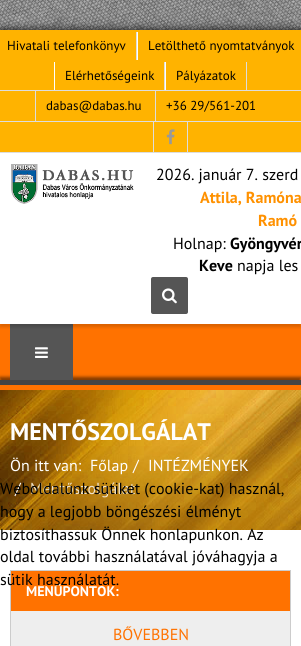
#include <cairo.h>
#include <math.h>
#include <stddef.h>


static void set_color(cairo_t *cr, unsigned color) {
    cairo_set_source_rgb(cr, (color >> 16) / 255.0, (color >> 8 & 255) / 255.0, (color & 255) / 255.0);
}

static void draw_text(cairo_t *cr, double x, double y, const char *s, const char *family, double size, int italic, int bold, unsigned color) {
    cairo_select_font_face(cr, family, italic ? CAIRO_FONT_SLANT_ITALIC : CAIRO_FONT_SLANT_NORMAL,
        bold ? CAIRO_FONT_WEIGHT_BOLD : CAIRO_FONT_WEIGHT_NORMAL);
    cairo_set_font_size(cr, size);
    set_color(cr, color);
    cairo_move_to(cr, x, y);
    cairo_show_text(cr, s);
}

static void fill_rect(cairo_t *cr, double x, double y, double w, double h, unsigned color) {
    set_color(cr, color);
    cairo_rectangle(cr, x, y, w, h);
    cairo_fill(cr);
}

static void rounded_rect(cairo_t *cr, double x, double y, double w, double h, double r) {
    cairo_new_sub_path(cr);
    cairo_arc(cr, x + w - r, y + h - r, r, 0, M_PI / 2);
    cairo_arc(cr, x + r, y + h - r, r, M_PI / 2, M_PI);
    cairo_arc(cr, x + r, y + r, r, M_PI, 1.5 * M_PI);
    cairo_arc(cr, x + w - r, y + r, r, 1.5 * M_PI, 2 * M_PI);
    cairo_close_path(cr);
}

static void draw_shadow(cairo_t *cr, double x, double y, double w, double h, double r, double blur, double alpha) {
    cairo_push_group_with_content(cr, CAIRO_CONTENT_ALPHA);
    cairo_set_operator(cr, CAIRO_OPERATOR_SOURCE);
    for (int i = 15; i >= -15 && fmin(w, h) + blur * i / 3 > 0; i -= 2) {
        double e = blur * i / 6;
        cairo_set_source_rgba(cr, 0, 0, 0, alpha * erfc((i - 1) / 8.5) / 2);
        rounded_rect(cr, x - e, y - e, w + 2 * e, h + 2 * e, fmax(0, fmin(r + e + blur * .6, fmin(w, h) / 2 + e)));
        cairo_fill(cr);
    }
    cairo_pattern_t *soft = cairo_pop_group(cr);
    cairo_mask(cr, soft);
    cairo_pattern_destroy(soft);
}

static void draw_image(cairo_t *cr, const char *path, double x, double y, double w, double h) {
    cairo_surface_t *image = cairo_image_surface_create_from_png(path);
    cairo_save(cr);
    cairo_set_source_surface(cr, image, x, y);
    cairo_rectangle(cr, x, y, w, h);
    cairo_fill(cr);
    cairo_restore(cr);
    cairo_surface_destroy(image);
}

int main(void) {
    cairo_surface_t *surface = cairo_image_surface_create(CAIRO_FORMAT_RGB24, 301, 646);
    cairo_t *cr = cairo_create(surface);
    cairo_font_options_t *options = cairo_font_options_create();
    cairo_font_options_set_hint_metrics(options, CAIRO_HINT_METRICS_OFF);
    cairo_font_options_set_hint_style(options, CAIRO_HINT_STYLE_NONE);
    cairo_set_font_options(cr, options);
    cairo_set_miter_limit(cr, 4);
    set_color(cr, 0xFFFFFF);
    cairo_paint(cr);
    draw_image(cr, "assets/img1.png", 0, 0, 301, 30);
    set_color(cr, 0x000000);
    draw_shadow(cr, 0, 30, 301, 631, 0, 5, 0.9);
    fill_rect(cr, 0, 153, 301, 493, 0xFFFFFF);
    fill_rect(cr, 0, 30, 301, 122, 0xFFB300);
    fill_rect(cr, 0, 152, 301, 1, 0xDDDDDD);
    fill_rect(cr, 0, 90, 301, 1, 0xDDDDDD);
    fill_rect(cr, 136, 32, 1, 28, 0xDDDDDD);
    draw_text(cr, 7, 50, "Hivatali telefonkönyv", "PT Sans", 13, 0, 0, 0x000000);
    fill_rect(cr, 137, 32, 1, 28, 0xFFFFFF);
    draw_text(cr, 148, 50, "Letölthető nyomtatványok", "PT Sans", 13, 0, 0, 0x000000);
    fill_rect(cr, 164, 62, 1, 28, 0xDDDDDD);
    fill_rect(cr, 54, 62, 1, 28, 0xFFFFFF);
    draw_text(cr, 65, 80, "Elérhetőségeink", "PT Sans", 13, 0, 0, 0x000000);
    fill_rect(cr, 246, 62, 1, 28, 0xDDDDDD);
    fill_rect(cr, 165, 62, 1, 28, 0xFFFFFF);
    draw_text(cr, 176, 80, "Pályázatok", "PT Sans", 13, 0, 0, 0x000000);
    fill_rect(cr, 0, 121, 301, 1, 0xDDDDDD);
    fill_rect(cr, 35, 91, 1, 30, 0xDDDDDD);
    draw_text(cr, 46, 110, "dabas@dabas.hu", "PT Sans", 13, 0, 0, 0x000000);
    fill_rect(cr, 155, 91, 1, 30, 0xDDDDDD);
    draw_text(cr, 166, 110, "+36 29/561-201", "PT Sans", 13, 0, 0, 0x000000);
    fill_rect(cr, 187, 122, 1, 30, 0xDDDDDD);
    fill_rect(cr, 153, 122, 1, 30, 0xDDDDDD);
    draw_image(cr, "assets/img2.png", 166, 129, 9, 16);
    fill_rect(cr, 0, 324, 301, 66, 0xFF7200);
    set_color(cr, 0x000000);
    draw_shadow(cr, 0, 377, 301, 5, 0, 1.5, 0.5);
    fill_rect(cr, 10, 324, 63, 56, 0x555555);
    cairo_save(cr);
    cairo_rectangle(cr, 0, 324, 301, 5);
    cairo_clip(cr);
    set_color(cr, 0x000000);
    draw_shadow(cr, 0, 156, 301, 171, 0, 1.5, 0.15);
    cairo_restore(cr);
    draw_image(cr, "assets/img3.png", 11, 164, 123, 40);
    draw_text(cr, 156, 180, "2026. január 7. szerd", "PT Sans", 16, 0, 0, 0x000000);
    draw_text(cr, 200, 203, "Attila, Ramóna", "PT Sans", 16, 0, 1, 0xFF9100);
    draw_text(cr, 258, 226, "Ramó", "PT Sans", 16, 0, 1, 0xFF9100);
    draw_text(cr, 173, 249, "Holnap:", "PT Sans", 16, 0, 0, 0x000000);
    draw_text(cr, 230, 249, "Gyöngyvér", "PT Sans", 16, 0, 1, 0x000000);
    draw_text(cr, 199, 271, "Keve", "PT Sans", 16, 0, 1, 0x000000);
    draw_text(cr, 237, 271, "napja les", "PT Sans", 16, 0, 0, 0x000000);
    set_color(cr, 0x555555);
    rounded_rect(cr, 151, 277, 37, 37, 2);
    cairo_fill(cr);
    draw_image(cr, "assets/img4.png", 162, 288, 15, 16);
    draw_image(cr, "assets/img5.png", 35, 347, 13, 11);
    fill_rect(cr, 0, 380, 301, 5, 0x444444);
    draw_image(cr, "assets/img6.png", 0, 390, 301, 140);
    draw_text(cr, 10, 440, "MENTŐSZOLGÁLAT", "PT Sans", 24, 0, 1, 0xFFFFFF);
    draw_text(cr, 10, 471, "Ön itt van:", "PT Sans", 16, 0, 0, 0xFFFFFF);
    draw_text(cr, 90, 471, "Főlap", "PT Sans", 16, 0, 0, 0xFFFFFF);
    draw_text(cr, 133, 471, "/", "PT Sans", 16, 0, 0, 0xFFFFFF);
    draw_text(cr, 148, 471, "INTÉZMÉNYEK", "PT Sans", 16, 0, 0, 0xFFFFFF);
    draw_text(cr, 15, 494, "/", "PT Sans", 16, 0, 0, 0xFFFFFF);
    draw_text(cr, 30, 494, "Mentőszolgálat", "PT Sans", 16, 0, 0, 0xF0E4CE);
    fill_rect(cr, 11, 611, 279, 35, 0xEEEEEE);
    cairo_rectangle(cr, 10.5, 570.5, 280, 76);
    set_color(cr, 0xCCCCCC);
    cairo_set_line_width(cr, 1);
    cairo_stroke(cr);
    fill_rect(cr, 11, 571, 279, 40, 0xFF7200);
    draw_text(cr, 26, 596, "MENÜPONTOK:", "PT Sans", 14, 0, 1, 0xFFFFFF);
    draw_text(cr, 0, 494, "Weboldalunk sütiket (cookie-kat) használ,", "PT Sans", 16, 0, 0, 0x000000);
    draw_text(cr, 0, 517, "hogy a legjobb böngészési élményt", "PT Sans", 16, 0, 0, 0x000000);
    draw_text(cr, 0, 540, "biztosíthassuk Önnek honlapunkon. Az", "PT Sans", 16, 0, 0, 0x000000);
    draw_text(cr, 0, 562, "oldal további használatával jóváhagyja a", "PT Sans", 16, 0, 0, 0x000000);
    draw_text(cr, 0, 585, "sütik használatát.", "PT Sans", 16, 0, 0, 0x000000);
    draw_text(cr, 113, 640, "BŐVEBBEN", "PT Sans", 16, 0, 0, 0xFF7200);
    cairo_surface_write_to_png(surface, "output.png");
    cairo_font_options_destroy(options);
    cairo_destroy(cr);
    cairo_surface_destroy(surface);
    return 0;
}
